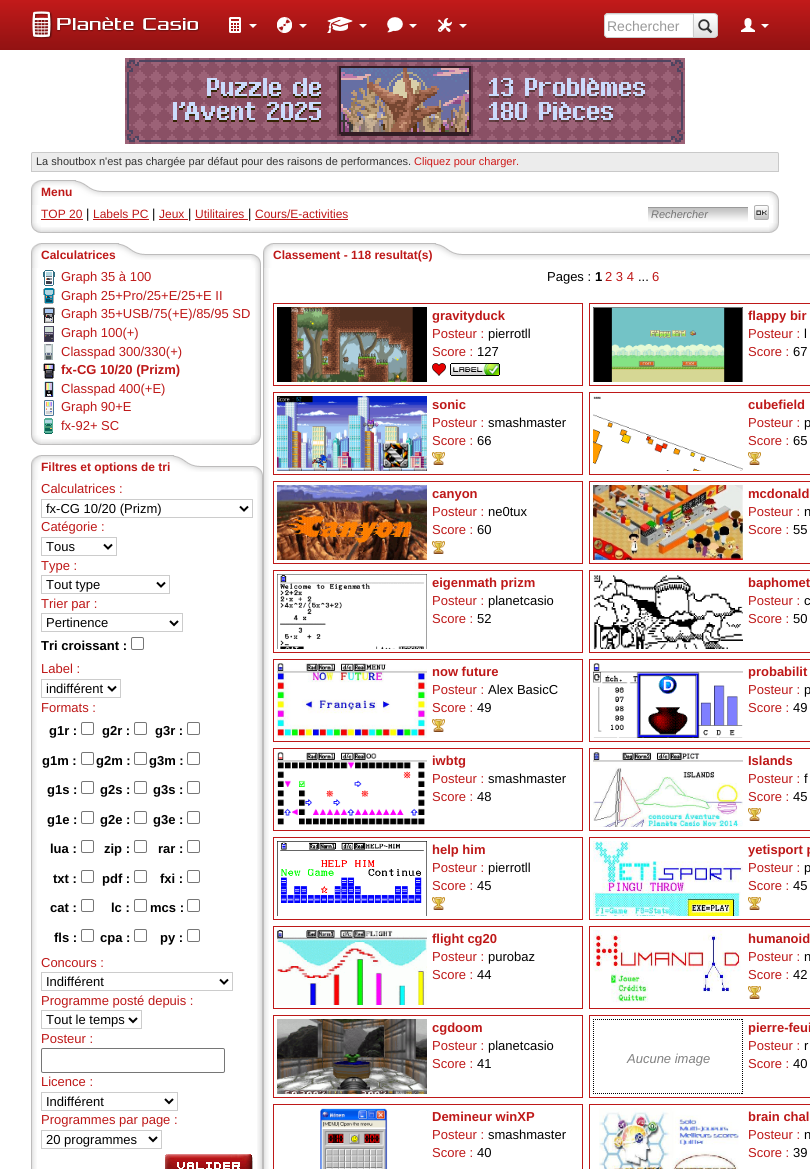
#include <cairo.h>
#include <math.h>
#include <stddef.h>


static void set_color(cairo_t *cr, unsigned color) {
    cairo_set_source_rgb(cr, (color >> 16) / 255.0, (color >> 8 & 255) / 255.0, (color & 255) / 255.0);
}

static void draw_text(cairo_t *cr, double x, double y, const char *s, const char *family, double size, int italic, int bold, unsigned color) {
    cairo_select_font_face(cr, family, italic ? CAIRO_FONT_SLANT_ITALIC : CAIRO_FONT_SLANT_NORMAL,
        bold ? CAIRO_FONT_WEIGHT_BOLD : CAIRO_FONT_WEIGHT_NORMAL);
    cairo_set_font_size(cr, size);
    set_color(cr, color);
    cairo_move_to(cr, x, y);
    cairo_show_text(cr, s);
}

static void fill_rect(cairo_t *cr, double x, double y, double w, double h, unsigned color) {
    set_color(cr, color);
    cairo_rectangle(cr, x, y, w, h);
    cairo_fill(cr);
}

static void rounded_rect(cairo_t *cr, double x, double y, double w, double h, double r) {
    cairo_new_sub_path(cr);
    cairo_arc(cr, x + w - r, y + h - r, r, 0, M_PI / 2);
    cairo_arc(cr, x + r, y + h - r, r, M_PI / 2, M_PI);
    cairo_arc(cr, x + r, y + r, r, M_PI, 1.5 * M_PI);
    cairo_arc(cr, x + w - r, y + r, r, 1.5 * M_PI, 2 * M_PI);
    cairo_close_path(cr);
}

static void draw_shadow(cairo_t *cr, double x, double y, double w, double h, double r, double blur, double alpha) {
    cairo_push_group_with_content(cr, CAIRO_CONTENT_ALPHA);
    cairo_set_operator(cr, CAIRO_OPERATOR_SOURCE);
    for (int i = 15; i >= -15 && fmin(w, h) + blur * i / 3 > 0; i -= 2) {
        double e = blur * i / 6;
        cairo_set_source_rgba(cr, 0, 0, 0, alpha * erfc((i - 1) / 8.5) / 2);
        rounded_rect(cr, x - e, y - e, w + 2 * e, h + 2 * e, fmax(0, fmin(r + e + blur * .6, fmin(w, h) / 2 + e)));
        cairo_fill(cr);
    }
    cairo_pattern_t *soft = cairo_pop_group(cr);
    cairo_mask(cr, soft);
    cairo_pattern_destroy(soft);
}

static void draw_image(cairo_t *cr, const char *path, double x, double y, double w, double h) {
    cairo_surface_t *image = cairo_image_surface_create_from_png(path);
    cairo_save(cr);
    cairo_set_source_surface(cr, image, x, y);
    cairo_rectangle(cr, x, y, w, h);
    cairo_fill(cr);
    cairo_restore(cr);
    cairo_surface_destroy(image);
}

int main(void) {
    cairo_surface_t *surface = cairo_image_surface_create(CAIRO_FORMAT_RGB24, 810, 1169);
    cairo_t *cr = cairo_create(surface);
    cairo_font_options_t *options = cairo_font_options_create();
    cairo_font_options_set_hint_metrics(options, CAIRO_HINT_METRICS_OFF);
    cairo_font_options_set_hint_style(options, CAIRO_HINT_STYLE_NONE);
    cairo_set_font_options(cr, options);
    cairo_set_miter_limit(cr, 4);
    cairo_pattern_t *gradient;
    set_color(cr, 0xFFFFFF);
    cairo_paint(cr);
    gradient = cairo_pattern_create_linear(405, 0, 405, 50);
    cairo_pattern_add_color_stop_rgba(gradient, 0, 0.761, 0.102, 0.102, 1);
    cairo_pattern_add_color_stop_rgba(gradient, 1, 0.569, 0.071, 0.071, 1);
    cairo_set_source(cr, gradient);
    cairo_pattern_destroy(gradient);
    cairo_rectangle(cr, 0, 0, 810, 50);
    cairo_fill(cr);
    draw_image(cr, "assets/img1.png", 32, 11, 168, 28);
    draw_image(cr, "assets/img2.png", 228, 17, 13, 16);
    set_color(cr, 0xFFFFFF);
    cairo_new_path(cr);
    cairo_move_to(cr, 249, 24);
    cairo_line_to(cr, 257, 24);
    cairo_line_to(cr, 253, 28);
    cairo_close_path(cr);
    cairo_fill(cr);
    draw_image(cr, "assets/img3.png", 277, 17, 15, 16);
    cairo_new_path(cr);
    cairo_move_to(cr, 299, 24);
    cairo_line_to(cr, 307, 24);
    cairo_line_to(cr, 303, 28);
    cairo_close_path(cr);
    cairo_fill(cr);
    draw_image(cr, "assets/img4.png", 327, 17, 26, 16);
    cairo_new_path(cr);
    cairo_move_to(cr, 359, 24);
    cairo_line_to(cr, 367, 24);
    cairo_line_to(cr, 363, 28);
    cairo_close_path(cr);
    cairo_fill(cr);
    draw_image(cr, "assets/img5.png", 387, 17, 16, 16);
    cairo_new_path(cr);
    cairo_move_to(cr, 409, 24);
    cairo_line_to(cr, 417, 24);
    cairo_line_to(cr, 413, 28);
    cairo_close_path(cr);
    cairo_fill(cr);
    draw_image(cr, "assets/img6.png", 438, 18, 14, 14);
    cairo_new_path(cr);
    cairo_move_to(cr, 459, 24);
    cairo_line_to(cr, 467, 24);
    cairo_line_to(cr, 463, 28);
    cairo_close_path(cr);
    cairo_fill(cr);
    cairo_new_path(cr);
    cairo_move_to(cr, 608, 13);
    cairo_line_to(cr, 694, 13);
    cairo_line_to(cr, 694, 38);
    cairo_line_to(cr, 608, 38);
    cairo_curve_to(cr, 606, 38, 604, 36, 604, 34);
    cairo_line_to(cr, 604, 17);
    cairo_curve_to(cr, 604, 15, 606, 13, 608, 13);
    cairo_close_path(cr);
    cairo_fill(cr);
    set_color(cr, 0xECECEC);
    cairo_new_path(cr);
    cairo_move_to(cr, 608, 15);
    cairo_line_to(cr, 693, 15);
    cairo_line_to(cr, 693, 14);
    cairo_line_to(cr, 608, 14);
    cairo_curve_to(cr, 606, 14, 605, 15, 605, 17);
    cairo_line_to(cr, 605, 18);
    cairo_curve_to(cr, 605, 16, 606, 15, 608, 15);
    cairo_close_path(cr);
    cairo_fill(cr);
    cairo_new_path(cr);
    cairo_move_to(cr, 608, 13.5);
    cairo_line_to(cr, 693.5, 13.5);
    cairo_line_to(cr, 693.5, 37.5);
    cairo_line_to(cr, 608, 37.5);
    cairo_curve_to(cr, 606, 37.5, 604.5, 36, 604.5, 34);
    cairo_line_to(cr, 604.5, 17);
    cairo_curve_to(cr, 604.5, 15, 606, 13.5, 608, 13.5);
    cairo_close_path(cr);
    set_color(cr, 0xCCCCCC);
    cairo_set_line_width(cr, 1);
    cairo_stroke(cr);
    draw_text(cr, 607, 31, "Rechercher", "Liberation Sans", 14, 0, 0, 0x999999);
    set_color(cr, 0x000000);
    draw_shadow(cr, 693, 14, 25, 25, 4, 0.5, 0.07);
    cairo_save(cr);
    cairo_new_path(cr);
    cairo_move_to(cr, 693, 13);
    cairo_line_to(cr, 714, 13);
    cairo_curve_to(cr, 716, 13, 718, 15, 718, 17);
    cairo_line_to(cr, 718, 34);
    cairo_curve_to(cr, 718, 36, 716, 38, 714, 38);
    cairo_line_to(cr, 693, 38);
    cairo_close_path(cr);
    cairo_clip(cr);
    gradient = cairo_pattern_create_linear(706, 14, 706, 37);
    cairo_pattern_add_color_stop_rgba(gradient, 0, 1, 1, 1, 1);
    cairo_pattern_add_color_stop_rgba(gradient, 1, 0.878, 0.878, 0.878, 1);
    cairo_set_source(cr, gradient);
    cairo_pattern_destroy(gradient);
    cairo_rectangle(cr, 694, 14, 24, 23);
    cairo_fill(cr);
    cairo_restore(cr);
    cairo_new_path(cr);
    cairo_move_to(cr, 693.5, 13.5);
    cairo_line_to(cr, 714, 13.5);
    cairo_curve_to(cr, 716, 13.5, 717.5, 15, 717.5, 17);
    cairo_line_to(cr, 717.5, 34);
    cairo_curve_to(cr, 717.5, 36, 716, 37.5, 714, 37.5);
    cairo_line_to(cr, 693.5, 37.5);
    cairo_close_path(cr);
    set_color(cr, 0xCCCCCC);
    cairo_stroke(cr);
    draw_image(cr, "assets/img7.png", 698, 19, 15, 15);
    draw_image(cr, "assets/img8.png", 741, 18, 14, 14);
    set_color(cr, 0xFFFFFF);
    cairo_new_path(cr);
    cairo_move_to(cr, 761, 24);
    cairo_line_to(cr, 769, 24);
    cairo_line_to(cr, 765, 28);
    cairo_close_path(cr);
    cairo_fill(cr);
    draw_image(cr, "assets/img9.png", 125, 58, 560, 86);
    set_color(cr, 0xECECEC);
    cairo_new_path(cr);
    cairo_move_to(cr, 33, 152.5);
    cairo_line_to(cr, 777, 152.5);
    cairo_curve_to(cr, 778, 152.5, 778.5, 153, 778.5, 154);
    cairo_line_to(cr, 778.5, 171.5);
    cairo_line_to(cr, 31.5, 171.5);
    cairo_line_to(cr, 31.5, 154);
    cairo_curve_to(cr, 31.5, 153, 32, 152.5, 33, 152.5);
    cairo_close_path(cr);
    cairo_fill_preserve(cr);
    set_color(cr, 0xC9C9C9);
    cairo_stroke(cr);
    draw_text(cr, 36, 165, "La shoutbox n'est pas chargée par défaut pour des raisons de performances.", "Liberation Sans", 11, 0, 0, 0x333333);
    draw_text(cr, 414, 165, "Cliquez pour charger.", "Liberation Sans", 11, 0, 0, 0xCE1919);
    draw_image(cr, "assets/img10.png", 31, 180, 10, 25);
    draw_image(cr, "assets/img11.png", 102, 191, 667, 6);
    draw_image(cr, "assets/img12.png", 41, 180, 32, 17);
    draw_text(cr, 41, 196, "Menu", "Liberation Sans", 12, 0, 1, 0xBE1818);
    draw_image(cr, "assets/img13.png", 73, 180, 29, 17);
    draw_image(cr, "assets/img14.png", 769, 191, 10, 14);
    draw_image(cr, "assets/img15.png", 31, 205, 6, 18);
    draw_text(cr, 41, 218, "TOP 20", "Liberation Sans", 12, 0, 0, 0xBE1818);
    fill_rect(cr, 41, 219, 42, 1, 0xBE1818);
    draw_text(cr, 86, 218, "|", "Liberation Sans", 13, 0, 0, 0x000000);
    draw_text(cr, 93, 218, "Labels PC", "Liberation Sans", 12, 0, 0, 0xBE1818);
    fill_rect(cr, 93, 219, 56, 1, 0xBE1818);
    draw_text(cr, 152, 218, "|", "Liberation Sans", 13, 0, 0, 0x000000);
    draw_text(cr, 159, 218, "Jeux", "Liberation Sans", 12, 0, 0, 0xBE1818);
    fill_rect(cr, 159, 219, 29, 1, 0xBE1818);
    draw_text(cr, 188, 218, "|", "Liberation Sans", 13, 0, 0, 0x000000);
    draw_text(cr, 195, 218, "Utilitaires", "Liberation Sans", 12, 0, 0, 0xBE1818);
    fill_rect(cr, 195, 219, 53, 1, 0xBE1818);
    draw_text(cr, 248, 218, "|", "Liberation Sans", 13, 0, 0, 0x000000);
    draw_text(cr, 255, 218, "Cours/E-activities", "Liberation Sans", 12, 0, 0, 0xBE1818);
    fill_rect(cr, 255, 219, 93, 1, 0xBE1818);
    fill_rect(cr, 648, 207, 100, 1, 0x999999);
    draw_image(cr, "assets/img16.png", 648, 208, 100, 14);
    draw_text(cr, 651, 218, "Rechercher", "Liberation Sans", 11, 1, 0, 0x757575);
    draw_image(cr, "assets/img17.png", 754, 205, 15, 15);
    draw_image(cr, "assets/img18.png", 773, 205, 6, 18);
    draw_image(cr, "assets/img19.png", 31, 223, 10, 10);
    draw_image(cr, "assets/img20.png", 41, 227, 728, 6);
    draw_image(cr, "assets/img21.png", 769, 223, 10, 10);
    draw_image(cr, "assets/img10.png", 31, 243, 10, 25);
    draw_image(cr, "assets/img22.png", 145, 254, 106, 6);
    draw_image(cr, "assets/img23.png", 41, 243, 75, 17);
    draw_text(cr, 41, 259, "Calculatrices", "Liberation Sans", 12, 0, 1, 0xBE1818);
    draw_image(cr, "assets/img13.png", 116, 243, 29, 17);
    draw_image(cr, "assets/img14.png", 251, 254, 10, 14);
    draw_image(cr, "assets/img24.png", 31, 268, 6, 167);
    draw_image(cr, "assets/img25.png", 43, 270, 12, 16);
    draw_text(cr, 61, 281, "Graph 35 à 100", "Liberation Sans", 13, 0, 0, 0xBE1818);
    draw_image(cr, "assets/img26.png", 43, 288, 12, 16);
    draw_text(cr, 61, 300, "Graph 25+Pro/25+E/25+E II", "Liberation Sans", 13, 0, 0, 0xBE1818);
    draw_image(cr, "assets/img27.png", 43, 307, 12, 16);
    draw_text(cr, 61, 318, "Graph 35+USB/75(+E)/85/95 SD", "Liberation Sans", 13, 0, 0, 0xBE1818);
    draw_image(cr, "assets/img28.png", 44, 326, 10, 16);
    draw_text(cr, 61, 337, "Graph 100(+)", "Liberation Sans", 13, 0, 0, 0xBE1818);
    draw_image(cr, "assets/img29.png", 44, 344, 9, 16);
    draw_text(cr, 61, 356, "Classpad 300/330(+)", "Liberation Sans", 13, 0, 0, 0xBE1818);
    draw_image(cr, "assets/img30.png", 43, 363, 12, 16);
    draw_text(cr, 61, 374, "fx-CG 10/20 (Prizm)", "Liberation Sans", 13, 0, 1, 0xBE1818);
    draw_image(cr, "assets/img31.png", 44, 381, 10, 16);
    draw_text(cr, 61, 393, "Classpad 400(+E)", "Liberation Sans", 13, 0, 0, 0xBE1818);
    draw_image(cr, "assets/img32.png", 44, 400, 10, 16);
    draw_text(cr, 61, 411, "Graph 90+E", "Liberation Sans", 13, 0, 0, 0xBE1818);
    draw_image(cr, "assets/img33.png", 44, 418, 9, 16);
    draw_text(cr, 61, 430, "fx-92+ SC", "Liberation Sans", 13, 0, 0, 0xBE1818);
    draw_image(cr, "assets/img34.png", 255, 268, 6, 167);
    draw_image(cr, "assets/img19.png", 31, 435, 10, 10);
    draw_image(cr, "assets/img35.png", 41, 439, 210, 6);
    draw_image(cr, "assets/img21.png", 251, 435, 10, 10);
    draw_image(cr, "assets/img10.png", 31, 455, 10, 25);
    draw_image(cr, "assets/img36.png", 200, 466, 53, 6);
    draw_image(cr, "assets/img37.png", 41, 455, 130, 17);
    draw_text(cr, 41, 471, "Filtres et options de tri", "Liberation Sans", 12, 0, 1, 0xBE1818);
    draw_image(cr, "assets/img13.png", 171, 455, 29, 17);
    draw_image(cr, "assets/img14.png", 253, 466, 10, 14);
    draw_image(cr, "assets/img38.png", 31, 480, 6, 689);
    draw_text(cr, 41, 493, "Calculatrices :", "Liberation Sans", 13, 0, 0, 0xBE1818);
    cairo_rectangle(cr, 41.5, 499.5, 211, 18);
    set_color(cr, 0xCCCCCC);
    cairo_stroke(cr);
    cairo_new_path(cr);
    cairo_move_to(cr, 240, 506.5);
    cairo_line_to(cr, 244, 510.5);
    cairo_line_to(cr, 248, 506.5);
    set_color(cr, 0x000000);
    cairo_set_line_width(cr, 2);
    cairo_stroke(cr);
    draw_text(cr, 46, 513, "fx-CG 10/20 (Prizm)", "Liberation Sans", 13, 0, 0, 0x000000);
    draw_text(cr, 41, 531, "Catégorie :", "Liberation Sans", 13, 0, 0, 0xBE1818);
    cairo_rectangle(cr, 41.5, 537.5, 75, 18);
    set_color(cr, 0xCCCCCC);
    cairo_set_line_width(cr, 1);
    cairo_stroke(cr);
    cairo_new_path(cr);
    cairo_move_to(cr, 104, 544.5);
    cairo_line_to(cr, 108, 548.5);
    cairo_line_to(cr, 112, 544.5);
    set_color(cr, 0x000000);
    cairo_set_line_width(cr, 2);
    cairo_stroke(cr);
    draw_text(cr, 46, 551, "Tous", "Liberation Sans", 13, 0, 0, 0x000000);
    draw_text(cr, 41, 570, "Type :", "Liberation Sans", 13, 0, 0, 0xBE1818);
    cairo_rectangle(cr, 41.5, 575.5, 128, 18);
    set_color(cr, 0xCCCCCC);
    cairo_set_line_width(cr, 1);
    cairo_stroke(cr);
    cairo_new_path(cr);
    cairo_move_to(cr, 157, 582.5);
    cairo_line_to(cr, 161, 586.5);
    cairo_line_to(cr, 165, 582.5);
    set_color(cr, 0x000000);
    cairo_set_line_width(cr, 2);
    cairo_stroke(cr);
    draw_text(cr, 46, 589, "Tout type", "Liberation Sans", 13, 0, 0, 0x000000);
    draw_text(cr, 41, 608, "Trier par :", "Liberation Sans", 13, 0, 0, 0xBE1818);
    cairo_rectangle(cr, 41.5, 613.5, 141, 18);
    set_color(cr, 0xCCCCCC);
    cairo_set_line_width(cr, 1);
    cairo_stroke(cr);
    cairo_new_path(cr);
    cairo_move_to(cr, 170, 621);
    cairo_line_to(cr, 174, 625);
    cairo_line_to(cr, 178, 621);
    set_color(cr, 0x000000);
    cairo_set_line_width(cr, 2);
    cairo_stroke(cr);
    draw_text(cr, 46, 627, "Pertinence", "Liberation Sans", 13, 0, 0, 0x000000);
    draw_text(cr, 41, 650, "Tri croissant :", "Liberation Sans", 13, 0, 1, 0x000000);
    rounded_rect(cr, 131.5, 637.5, 12, 12, 1.5);
    set_color(cr, 0x767676);
    cairo_set_line_width(cr, 1);
    cairo_stroke(cr);
    draw_text(cr, 41, 673, "Label :", "Liberation Sans", 13, 0, 0, 0xBE1818);
    cairo_rectangle(cr, 41.5, 679.5, 79, 18);
    set_color(cr, 0xCCCCCC);
    cairo_stroke(cr);
    cairo_new_path(cr);
    cairo_move_to(cr, 108, 686.5);
    cairo_line_to(cr, 112, 690.5);
    cairo_line_to(cr, 116, 686.5);
    set_color(cr, 0x000000);
    cairo_set_line_width(cr, 2);
    cairo_stroke(cr);
    draw_text(cr, 46, 693, "indifférent", "Liberation Sans", 13, 0, 0, 0x000000);
    draw_text(cr, 41, 712, "Formats :", "Liberation Sans", 13, 0, 0, 0xBE1818);
    draw_text(cr, 49, 735, "g1r :", "Liberation Sans", 13, 0, 1, 0x000000);
    rounded_rect(cr, 81.5, 722.5, 12, 12, 1.5);
    set_color(cr, 0x767676);
    cairo_set_line_width(cr, 1);
    cairo_stroke(cr);
    draw_text(cr, 102, 735, "g2r :", "Liberation Sans", 13, 0, 1, 0x000000);
    rounded_rect(cr, 134.5, 722.5, 12, 12, 1.5);
    set_color(cr, 0x767676);
    cairo_stroke(cr);
    draw_text(cr, 155, 735, "g3r :", "Liberation Sans", 13, 0, 1, 0x000000);
    rounded_rect(cr, 187.5, 722.5, 12, 12, 1.5);
    set_color(cr, 0x767676);
    cairo_stroke(cr);
    draw_text(cr, 42, 765, "g1m :", "Liberation Sans", 13, 0, 1, 0x000000);
    rounded_rect(cr, 81.5, 752.5, 12, 12, 1.5);
    set_color(cr, 0x767676);
    cairo_stroke(cr);
    draw_text(cr, 96, 765, "g2m :", "Liberation Sans", 13, 0, 1, 0x000000);
    rounded_rect(cr, 134.5, 752.5, 12, 12, 1.5);
    set_color(cr, 0x767676);
    cairo_stroke(cr);
    draw_text(cr, 149, 765, "g3m :", "Liberation Sans", 13, 0, 1, 0x000000);
    rounded_rect(cr, 187.5, 752.5, 12, 12, 1.5);
    set_color(cr, 0x767676);
    cairo_stroke(cr);
    draw_text(cr, 47, 794, "g1s :", "Liberation Sans", 13, 0, 1, 0x000000);
    rounded_rect(cr, 81.5, 781.5, 12, 12, 1.5);
    set_color(cr, 0x767676);
    cairo_stroke(cr);
    draw_text(cr, 100, 794, "g2s :", "Liberation Sans", 13, 0, 1, 0x000000);
    rounded_rect(cr, 134.5, 781.5, 12, 12, 1.5);
    set_color(cr, 0x767676);
    cairo_stroke(cr);
    draw_text(cr, 153, 794, "g3s :", "Liberation Sans", 13, 0, 1, 0x000000);
    rounded_rect(cr, 187.5, 781.5, 12, 12, 1.5);
    set_color(cr, 0x767676);
    cairo_stroke(cr);
    draw_text(cr, 47, 824, "g1e :", "Liberation Sans", 13, 0, 1, 0x000000);
    rounded_rect(cr, 81.5, 811.5, 12, 12, 1.5);
    set_color(cr, 0x767676);
    cairo_stroke(cr);
    draw_text(cr, 100, 824, "g2e :", "Liberation Sans", 13, 0, 1, 0x000000);
    rounded_rect(cr, 134.5, 811.5, 12, 12, 1.5);
    set_color(cr, 0x767676);
    cairo_stroke(cr);
    draw_text(cr, 153, 824, "g3e :", "Liberation Sans", 13, 0, 1, 0x000000);
    rounded_rect(cr, 187.5, 811.5, 12, 12, 1.5);
    set_color(cr, 0x767676);
    cairo_stroke(cr);
    draw_text(cr, 50, 853, "lua :", "Liberation Sans", 13, 0, 1, 0x000000);
    rounded_rect(cr, 81.5, 840.5, 12, 12, 1.5);
    set_color(cr, 0x767676);
    cairo_stroke(cr);
    draw_text(cr, 104, 853, "zip :", "Liberation Sans", 13, 0, 1, 0x000000);
    rounded_rect(cr, 134.5, 840.5, 12, 12, 1.5);
    set_color(cr, 0x767676);
    cairo_stroke(cr);
    draw_text(cr, 158, 853, "rar :", "Liberation Sans", 13, 0, 1, 0x000000);
    rounded_rect(cr, 187.5, 840.5, 12, 12, 1.5);
    set_color(cr, 0x767676);
    cairo_stroke(cr);
    draw_text(cr, 53, 883, "txt :", "Liberation Sans", 13, 0, 1, 0x000000);
    rounded_rect(cr, 81.5, 870.5, 12, 12, 1.5);
    set_color(cr, 0x767676);
    cairo_stroke(cr);
    draw_text(cr, 102, 883, "pdf :", "Liberation Sans", 13, 0, 1, 0x000000);
    rounded_rect(cr, 134.5, 870.5, 12, 12, 1.5);
    set_color(cr, 0x767676);
    cairo_stroke(cr);
    draw_text(cr, 160, 883, "fxi :", "Liberation Sans", 13, 0, 1, 0x000000);
    rounded_rect(cr, 187.5, 870.5, 12, 12, 1.5);
    set_color(cr, 0x767676);
    cairo_stroke(cr);
    draw_text(cr, 50, 912, "cat :", "Liberation Sans", 13, 0, 1, 0x000000);
    rounded_rect(cr, 81.5, 899.5, 12, 12, 1.5);
    set_color(cr, 0x767676);
    cairo_stroke(cr);
    draw_text(cr, 111, 912, "lc :", "Liberation Sans", 13, 0, 1, 0x000000);
    rounded_rect(cr, 134.5, 899.5, 12, 12, 1.5);
    set_color(cr, 0x767676);
    cairo_stroke(cr);
    draw_text(cr, 150, 912, "mcs :", "Liberation Sans", 13, 0, 1, 0x000000);
    rounded_rect(cr, 187.5, 899.5, 12, 12, 1.5);
    set_color(cr, 0x767676);
    cairo_stroke(cr);
    draw_text(cr, 54, 942, "fls :", "Liberation Sans", 13, 0, 1, 0x000000);
    rounded_rect(cr, 81.5, 929.5, 12, 12, 1.5);
    set_color(cr, 0x767676);
    cairo_stroke(cr);
    draw_text(cr, 100, 942, "cpa :", "Liberation Sans", 13, 0, 1, 0x000000);
    rounded_rect(cr, 134.5, 929.5, 12, 12, 1.5);
    set_color(cr, 0x767676);
    cairo_stroke(cr);
    draw_text(cr, 160, 942, "py :", "Liberation Sans", 13, 0, 1, 0x000000);
    rounded_rect(cr, 187.5, 929.5, 12, 12, 1.5);
    set_color(cr, 0x767676);
    cairo_stroke(cr);
    draw_text(cr, 41, 967, "Concours :", "Liberation Sans", 13, 0, 0, 0xBE1818);
    cairo_rectangle(cr, 41.5, 972.5, 191, 18);
    set_color(cr, 0xCCCCCC);
    cairo_stroke(cr);
    cairo_new_path(cr);
    cairo_move_to(cr, 220, 979.5);
    cairo_line_to(cr, 224, 983.5);
    cairo_line_to(cr, 228, 979.5);
    set_color(cr, 0x000000);
    cairo_set_line_width(cr, 2);
    cairo_stroke(cr);
    draw_text(cr, 46, 986, "Indifférent", "Liberation Sans", 13, 0, 0, 0x000000);
    draw_text(cr, 41, 1005, "Programme posté depuis :", "Liberation Sans", 13, 0, 0, 0xBE1818);
    cairo_rectangle(cr, 41.5, 1010.5, 100, 18);
    set_color(cr, 0xCCCCCC);
    cairo_set_line_width(cr, 1);
    cairo_stroke(cr);
    cairo_new_path(cr);
    cairo_move_to(cr, 129, 1018);
    cairo_line_to(cr, 133, 1022);
    cairo_line_to(cr, 137, 1018);
    set_color(cr, 0x000000);
    cairo_set_line_width(cr, 2);
    cairo_stroke(cr);
    draw_text(cr, 46, 1024, "Tout le temps", "Liberation Sans", 13, 0, 0, 0x000000);
    draw_text(cr, 41, 1043, "Posteur :", "Liberation Sans", 13, 0, 0, 0xBE1818);
    rounded_rect(cr, 41.5, 1048.5, 183, 24, 1.5);
    set_color(cr, 0x767676);
    cairo_set_line_width(cr, 1);
    cairo_stroke(cr);
    draw_text(cr, 41, 1086, "Licence :", "Liberation Sans", 13, 0, 0, 0xBE1818);
    cairo_rectangle(cr, 41.5, 1092.5, 136, 18);
    set_color(cr, 0xCCCCCC);
    cairo_stroke(cr);
    cairo_new_path(cr);
    cairo_move_to(cr, 165, 1099);
    cairo_line_to(cr, 169, 1103);
    cairo_line_to(cr, 173, 1099);
    set_color(cr, 0x000000);
    cairo_set_line_width(cr, 2);
    cairo_stroke(cr);
    draw_text(cr, 46, 1106, "Indifférent", "Liberation Sans", 13, 0, 0, 0x000000);
    draw_text(cr, 41, 1124, "Programmes par page :", "Liberation Sans", 13, 0, 0, 0xBE1818);
    cairo_rectangle(cr, 41.5, 1130.5, 120, 18);
    set_color(cr, 0xCCCCCC);
    cairo_set_line_width(cr, 1);
    cairo_stroke(cr);
    cairo_new_path(cr);
    cairo_move_to(cr, 149, 1137);
    cairo_line_to(cr, 153, 1141);
    cairo_line_to(cr, 157, 1137);
    set_color(cr, 0x000000);
    cairo_set_line_width(cr, 2);
    cairo_stroke(cr);
    draw_text(cr, 46, 1144, "20 programmes", "Liberation Sans", 13, 0, 0, 0x000000);
    draw_image(cr, "assets/img39.png", 165, 1154, 88, 15);
    draw_image(cr, "assets/img40.png", 257, 480, 6, 689);
    draw_image(cr, "assets/img41.png", 263, 243, 10, 25);
    draw_image(cr, "assets/img42.png", 462, 254, 348, 6);
    draw_image(cr, "assets/img43.png", 273, 243, 160, 17);
    draw_text(cr, 273, 259, "Classement - 118 resultat(s)", "Liberation Sans", 12, 0, 1, 0xBE1818);
    draw_image(cr, "assets/img13.png", 433, 243, 29, 17);
    draw_image(cr, "assets/img44.png", 263, 268, 6, 901);
    draw_text(cr, 547, 281, "Pages :", "Liberation Sans", 13, 0, 0, 0x000000);
    draw_text(cr, 595, 281, "1", "Liberation Sans", 13, 0, 1, 0x000000);
    draw_text(cr, 605, 281, "2 3 4", "Liberation Sans", 13, 0, 0, 0xBE1818);
    draw_text(cr, 638, 281, "...", "Liberation Sans", 13, 0, 0, 0x000000);
    draw_text(cr, 652, 281, "6", "Liberation Sans", 13, 0, 0, 0xBE1818);
    cairo_rectangle(cr, 273.5, 303.5, 309, 82);
    cairo_set_line_width(cr, 1);
    cairo_stroke(cr);
    draw_image(cr, "assets/img45.png", 277, 307, 150, 75);
    draw_text(cr, 432, 320, "gravityduck", "Liberation Sans", 13, 0, 1, 0xBE1818);
    draw_text(cr, 432, 338, "Posteur :", "Liberation Sans", 13, 0, 0, 0xBE1818);
    draw_text(cr, 488, 338, "pierrotll", "Liberation Sans", 13, 0, 0, 0x000000);
    draw_text(cr, 432, 356, "Score :", "Liberation Sans", 13, 0, 0, 0xBE1818);
    draw_text(cr, 477, 356, "127", "Liberation Sans", 13, 0, 0, 0x000000);
    draw_image(cr, "assets/img46.png", 432, 363, 14, 13);
    draw_image(cr, "assets/img47.png", 450, 363, 50, 13);
    cairo_rectangle(cr, 589.5, 303.5, 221, 82);
    set_color(cr, 0xBE1818);
    cairo_stroke(cr);
    draw_image(cr, "assets/img48.png", 593, 307, 150, 75);
    draw_text(cr, 748, 320, "flappy bir", "Liberation Sans", 13, 0, 1, 0xBE1818);
    draw_text(cr, 748, 338, "Posteur :", "Liberation Sans", 13, 0, 0, 0xBE1818);
    draw_text(cr, 804, 338, "l", "Liberation Sans", 13, 0, 0, 0x000000);
    draw_text(cr, 748, 356, "Score :", "Liberation Sans", 13, 0, 0, 0xBE1818);
    draw_text(cr, 793, 356, "67", "Liberation Sans", 13, 0, 0, 0x000000);
    cairo_rectangle(cr, 273.5, 392.5, 309, 82);
    set_color(cr, 0xBE1818);
    cairo_stroke(cr);
    draw_image(cr, "assets/img49.png", 277, 396, 150, 75);
    draw_text(cr, 432, 409, "sonic", "Liberation Sans", 13, 0, 1, 0xBE1818);
    draw_text(cr, 432, 427, "Posteur :", "Liberation Sans", 13, 0, 0, 0xBE1818);
    draw_text(cr, 488, 427, "smashmaster", "Liberation Sans", 13, 0, 0, 0x000000);
    draw_text(cr, 432, 445, "Score :", "Liberation Sans", 13, 0, 0, 0xBE1818);
    draw_text(cr, 477, 445, "66", "Liberation Sans", 13, 0, 0, 0x000000);
    draw_image(cr, "assets/img50.png", 432, 452, 13, 13);
    cairo_rectangle(cr, 589.5, 392.5, 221, 82);
    set_color(cr, 0xBE1818);
    cairo_stroke(cr);
    draw_image(cr, "assets/img51.png", 593, 396, 150, 75);
    draw_text(cr, 748, 409, "cubefield", "Liberation Sans", 13, 0, 1, 0xBE1818);
    draw_text(cr, 748, 427, "Posteur :", "Liberation Sans", 13, 0, 0, 0xBE1818);
    draw_text(cr, 804, 427, "p", "Liberation Sans", 13, 0, 0, 0x000000);
    draw_text(cr, 748, 445, "Score :", "Liberation Sans", 13, 0, 0, 0xBE1818);
    draw_text(cr, 793, 445, "65", "Liberation Sans", 13, 0, 0, 0x000000);
    draw_image(cr, "assets/img50.png", 748, 452, 13, 13);
    cairo_rectangle(cr, 273.5, 481.5, 309, 82);
    set_color(cr, 0xBE1818);
    cairo_stroke(cr);
    draw_image(cr, "assets/img52.png", 277, 485, 150, 75);
    draw_text(cr, 432, 498, "canyon", "Liberation Sans", 13, 0, 1, 0xBE1818);
    draw_text(cr, 432, 516, "Posteur :", "Liberation Sans", 13, 0, 0, 0xBE1818);
    draw_text(cr, 488, 516, "ne0tux", "Liberation Sans", 13, 0, 0, 0x000000);
    draw_text(cr, 432, 534, "Score :", "Liberation Sans", 13, 0, 0, 0xBE1818);
    draw_text(cr, 477, 534, "60", "Liberation Sans", 13, 0, 0, 0x000000);
    draw_image(cr, "assets/img50.png", 432, 541, 13, 13);
    cairo_rectangle(cr, 589.5, 481.5, 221, 82);
    set_color(cr, 0xBE1818);
    cairo_stroke(cr);
    draw_image(cr, "assets/img53.png", 593, 485, 150, 75);
    draw_text(cr, 748, 498, "mcdonald", "Liberation Sans", 13, 0, 1, 0xBE1818);
    draw_text(cr, 748, 516, "Posteur :", "Liberation Sans", 13, 0, 0, 0xBE1818);
    draw_text(cr, 804, 516, "n", "Liberation Sans", 13, 0, 0, 0x000000);
    draw_text(cr, 748, 534, "Score :", "Liberation Sans", 13, 0, 0, 0xBE1818);
    draw_text(cr, 793, 534, "55", "Liberation Sans", 13, 0, 0, 0x000000);
    cairo_rectangle(cr, 273.5, 570.5, 309, 82);
    set_color(cr, 0xBE1818);
    cairo_stroke(cr);
    draw_image(cr, "assets/img54.png", 277, 574, 150, 75);
    draw_text(cr, 432, 587, "eigenmath prizm", "Liberation Sans", 13, 0, 1, 0xBE1818);
    draw_text(cr, 432, 605, "Posteur :", "Liberation Sans", 13, 0, 0, 0xBE1818);
    draw_text(cr, 488, 605, "planetcasio", "Liberation Sans", 13, 0, 0, 0x000000);
    draw_text(cr, 432, 623, "Score :", "Liberation Sans", 13, 0, 0, 0xBE1818);
    draw_text(cr, 477, 623, "52", "Liberation Sans", 13, 0, 0, 0x000000);
    cairo_rectangle(cr, 589.5, 570.5, 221, 82);
    set_color(cr, 0xBE1818);
    cairo_stroke(cr);
    draw_image(cr, "assets/img55.png", 593, 575, 150, 74);
    draw_text(cr, 748, 587, "baphomet", "Liberation Sans", 13, 0, 1, 0xBE1818);
    draw_text(cr, 748, 605, "Posteur :", "Liberation Sans", 13, 0, 0, 0xBE1818);
    draw_text(cr, 804, 605, "c", "Liberation Sans", 13, 0, 0, 0x000000);
    draw_text(cr, 748, 623, "Score :", "Liberation Sans", 13, 0, 0, 0xBE1818);
    draw_text(cr, 793, 623, "50", "Liberation Sans", 13, 0, 0, 0x000000);
    cairo_rectangle(cr, 273.5, 659.5, 309, 82);
    set_color(cr, 0xBE1818);
    cairo_stroke(cr);
    draw_image(cr, "assets/img56.png", 277, 663, 150, 75);
    draw_text(cr, 432, 676, "now future", "Liberation Sans", 13, 0, 1, 0xBE1818);
    draw_text(cr, 432, 694, "Posteur :", "Liberation Sans", 13, 0, 0, 0xBE1818);
    draw_text(cr, 488, 694, "Alex BasicC", "Liberation Sans", 13, 0, 0, 0x000000);
    draw_text(cr, 432, 712, "Score :", "Liberation Sans", 13, 0, 0, 0xBE1818);
    draw_text(cr, 477, 712, "49", "Liberation Sans", 13, 0, 0, 0x000000);
    draw_image(cr, "assets/img50.png", 432, 719, 13, 13);
    cairo_rectangle(cr, 589.5, 659.5, 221, 82);
    set_color(cr, 0xBE1818);
    cairo_stroke(cr);
    draw_image(cr, "assets/img57.png", 593, 663, 150, 75);
    draw_text(cr, 748, 676, "probabilit", "Liberation Sans", 13, 0, 1, 0xBE1818);
    draw_text(cr, 748, 694, "Posteur :", "Liberation Sans", 13, 0, 0, 0xBE1818);
    draw_text(cr, 804, 694, "p", "Liberation Sans", 13, 0, 0, 0x000000);
    draw_text(cr, 748, 712, "Score :", "Liberation Sans", 13, 0, 0, 0xBE1818);
    draw_text(cr, 793, 712, "49", "Liberation Sans", 13, 0, 0, 0x000000);
    cairo_rectangle(cr, 273.5, 748.5, 309, 82);
    set_color(cr, 0xBE1818);
    cairo_stroke(cr);
    draw_image(cr, "assets/img58.png", 277, 752, 150, 73);
    draw_text(cr, 432, 765, "iwbtg", "Liberation Sans", 13, 0, 1, 0xBE1818);
    draw_text(cr, 432, 783, "Posteur :", "Liberation Sans", 13, 0, 0, 0xBE1818);
    draw_text(cr, 488, 783, "smashmaster", "Liberation Sans", 13, 0, 0, 0x000000);
    draw_text(cr, 432, 801, "Score :", "Liberation Sans", 13, 0, 0, 0xBE1818);
    draw_text(cr, 477, 801, "48", "Liberation Sans", 13, 0, 0, 0x000000);
    cairo_rectangle(cr, 589.5, 748.5, 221, 82);
    set_color(cr, 0xBE1818);
    cairo_stroke(cr);
    draw_image(cr, "assets/img59.png", 593, 752, 150, 75);
    draw_text(cr, 748, 765, "Islands", "Liberation Sans", 13, 0, 1, 0xBE1818);
    draw_text(cr, 748, 783, "Posteur :", "Liberation Sans", 13, 0, 0, 0xBE1818);
    draw_text(cr, 804, 783, "f", "Liberation Sans", 13, 0, 0, 0x000000);
    draw_text(cr, 748, 801, "Score :", "Liberation Sans", 13, 0, 0, 0xBE1818);
    draw_text(cr, 793, 801, "45", "Liberation Sans", 13, 0, 0, 0x000000);
    draw_image(cr, "assets/img50.png", 748, 808, 13, 13);
    cairo_rectangle(cr, 273.5, 837.5, 309, 82);
    set_color(cr, 0xBE1818);
    cairo_stroke(cr);
    draw_image(cr, "assets/img60.png", 277, 841, 150, 75);
    draw_text(cr, 432, 854, "help him", "Liberation Sans", 13, 0, 1, 0xBE1818);
    draw_text(cr, 432, 872, "Posteur :", "Liberation Sans", 13, 0, 0, 0xBE1818);
    draw_text(cr, 488, 872, "pierrotll", "Liberation Sans", 13, 0, 0, 0x000000);
    draw_text(cr, 432, 890, "Score :", "Liberation Sans", 13, 0, 0, 0xBE1818);
    draw_text(cr, 477, 890, "45", "Liberation Sans", 13, 0, 0, 0x000000);
    draw_image(cr, "assets/img50.png", 432, 897, 13, 13);
    cairo_rectangle(cr, 589.5, 837.5, 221, 82);
    set_color(cr, 0xBE1818);
    cairo_stroke(cr);
    draw_image(cr, "assets/img61.png", 593, 841, 150, 75);
    draw_text(cr, 748, 854, "yetisport p", "Liberation Sans", 13, 0, 1, 0xBE1818);
    draw_text(cr, 748, 872, "Posteur :", "Liberation Sans", 13, 0, 0, 0xBE1818);
    draw_text(cr, 804, 872, "p", "Liberation Sans", 13, 0, 0, 0x000000);
    draw_text(cr, 748, 890, "Score :", "Liberation Sans", 13, 0, 0, 0xBE1818);
    draw_text(cr, 793, 890, "45", "Liberation Sans", 13, 0, 0, 0x000000);
    draw_image(cr, "assets/img50.png", 748, 897, 13, 13);
    cairo_rectangle(cr, 273.5, 926.5, 309, 82);
    set_color(cr, 0xBE1818);
    cairo_stroke(cr);
    draw_image(cr, "assets/img62.png", 277, 930, 150, 75);
    draw_text(cr, 432, 943, "flight cg20", "Liberation Sans", 13, 0, 1, 0xBE1818);
    draw_text(cr, 432, 961, "Posteur :", "Liberation Sans", 13, 0, 0, 0xBE1818);
    draw_text(cr, 488, 961, "purobaz", "Liberation Sans", 13, 0, 0, 0x000000);
    draw_text(cr, 432, 979, "Score :", "Liberation Sans", 13, 0, 0, 0xBE1818);
    draw_text(cr, 477, 979, "44", "Liberation Sans", 13, 0, 0, 0x000000);
    cairo_rectangle(cr, 589.5, 926.5, 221, 82);
    set_color(cr, 0xBE1818);
    cairo_stroke(cr);
    draw_image(cr, "assets/img63.png", 593, 930, 148, 73);
    draw_text(cr, 748, 943, "humanoid", "Liberation Sans", 13, 0, 1, 0xBE1818);
    draw_text(cr, 748, 961, "Posteur :", "Liberation Sans", 13, 0, 0, 0xBE1818);
    draw_text(cr, 804, 961, "n", "Liberation Sans", 13, 0, 0, 0x000000);
    draw_text(cr, 748, 979, "Score :", "Liberation Sans", 13, 0, 0, 0xBE1818);
    draw_text(cr, 793, 979, "42", "Liberation Sans", 13, 0, 0, 0x000000);
    draw_image(cr, "assets/img50.png", 748, 986, 13, 13);
    cairo_rectangle(cr, 273.5, 1015.5, 309, 82);
    set_color(cr, 0xBE1818);
    cairo_stroke(cr);
    draw_image(cr, "assets/img64.png", 277, 1019, 150, 75);
    draw_text(cr, 432, 1032, "cgdoom", "Liberation Sans", 13, 0, 1, 0xBE1818);
    draw_text(cr, 432, 1050, "Posteur :", "Liberation Sans", 13, 0, 0, 0xBE1818);
    draw_text(cr, 488, 1050, "planetcasio", "Liberation Sans", 13, 0, 0, 0x000000);
    draw_text(cr, 432, 1068, "Score :", "Liberation Sans", 13, 0, 0, 0xBE1818);
    draw_text(cr, 477, 1068, "41", "Liberation Sans", 13, 0, 0, 0x000000);
    cairo_rectangle(cr, 589.5, 1015.5, 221, 82);
    set_color(cr, 0xBE1818);
    cairo_stroke(cr);
    cairo_new_path(cr);
    cairo_move_to(cr, 593, 1019.5);
    cairo_line_to(cr, 743, 1019.5);
    set_color(cr, 0x000000);
    cairo_set_dash(cr, (double[]){1, 1}, 2, 0);
    cairo_stroke(cr);
    cairo_new_path(cr);
    cairo_move_to(cr, 742.5, 1019);
    cairo_line_to(cr, 742.5, 1094);
    cairo_stroke(cr);
    cairo_new_path(cr);
    cairo_move_to(cr, 593, 1093.5);
    cairo_line_to(cr, 743, 1093.5);
    cairo_stroke(cr);
    cairo_new_path(cr);
    cairo_move_to(cr, 593.5, 1019);
    cairo_line_to(cr, 593.5, 1094);
    cairo_stroke(cr);
    draw_text(cr, 627, 1063, "Aucune image", "Liberation Sans", 13, 1, 0, 0x808080);
    draw_text(cr, 748, 1032, "pierre-feui", "Liberation Sans", 13, 0, 1, 0xBE1818);
    draw_text(cr, 748, 1050, "Posteur :", "Liberation Sans", 13, 0, 0, 0xBE1818);
    draw_text(cr, 804, 1050, "r", "Liberation Sans", 13, 0, 0, 0x000000);
    draw_text(cr, 748, 1068, "Score :", "Liberation Sans", 13, 0, 0, 0xBE1818);
    draw_text(cr, 793, 1068, "40", "Liberation Sans", 13, 0, 0, 0x000000);
    cairo_rectangle(cr, 273.5, 1104.5, 309, 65);
    set_color(cr, 0xBE1818);
    cairo_set_dash(cr, NULL, 0, 0);
    cairo_stroke(cr);
    draw_image(cr, "assets/img65.png", 320, 1108, 68, 61);
    draw_text(cr, 432, 1121, "Demineur winXP", "Liberation Sans", 13, 0, 1, 0xBE1818);
    draw_text(cr, 432, 1139, "Posteur :", "Liberation Sans", 13, 0, 0, 0xBE1818);
    draw_text(cr, 488, 1139, "smashmaster", "Liberation Sans", 13, 0, 0, 0x000000);
    draw_text(cr, 432, 1157, "Score :", "Liberation Sans", 13, 0, 0, 0xBE1818);
    draw_text(cr, 477, 1157, "40", "Liberation Sans", 13, 0, 0, 0x000000);
    cairo_rectangle(cr, 589.5, 1104.5, 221, 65);
    set_color(cr, 0xBE1818);
    cairo_stroke(cr);
    draw_image(cr, "assets/img66.png", 599, 1108, 140, 61);
    draw_text(cr, 748, 1121, "brain chal", "Liberation Sans", 13, 0, 1, 0xBE1818);
    draw_text(cr, 748, 1139, "Posteur :", "Liberation Sans", 13, 0, 0, 0xBE1818);
    draw_text(cr, 804, 1139, "n", "Liberation Sans", 13, 0, 0, 0x000000);
    draw_text(cr, 748, 1157, "Score :", "Liberation Sans", 13, 0, 0, 0xBE1818);
    draw_text(cr, 793, 1157, "39", "Liberation Sans", 13, 0, 0, 0x000000);
    cairo_surface_write_to_png(surface, "output.png");
    cairo_font_options_destroy(options);
    cairo_destroy(cr);
    cairo_surface_destroy(surface);
    return 0;
}
